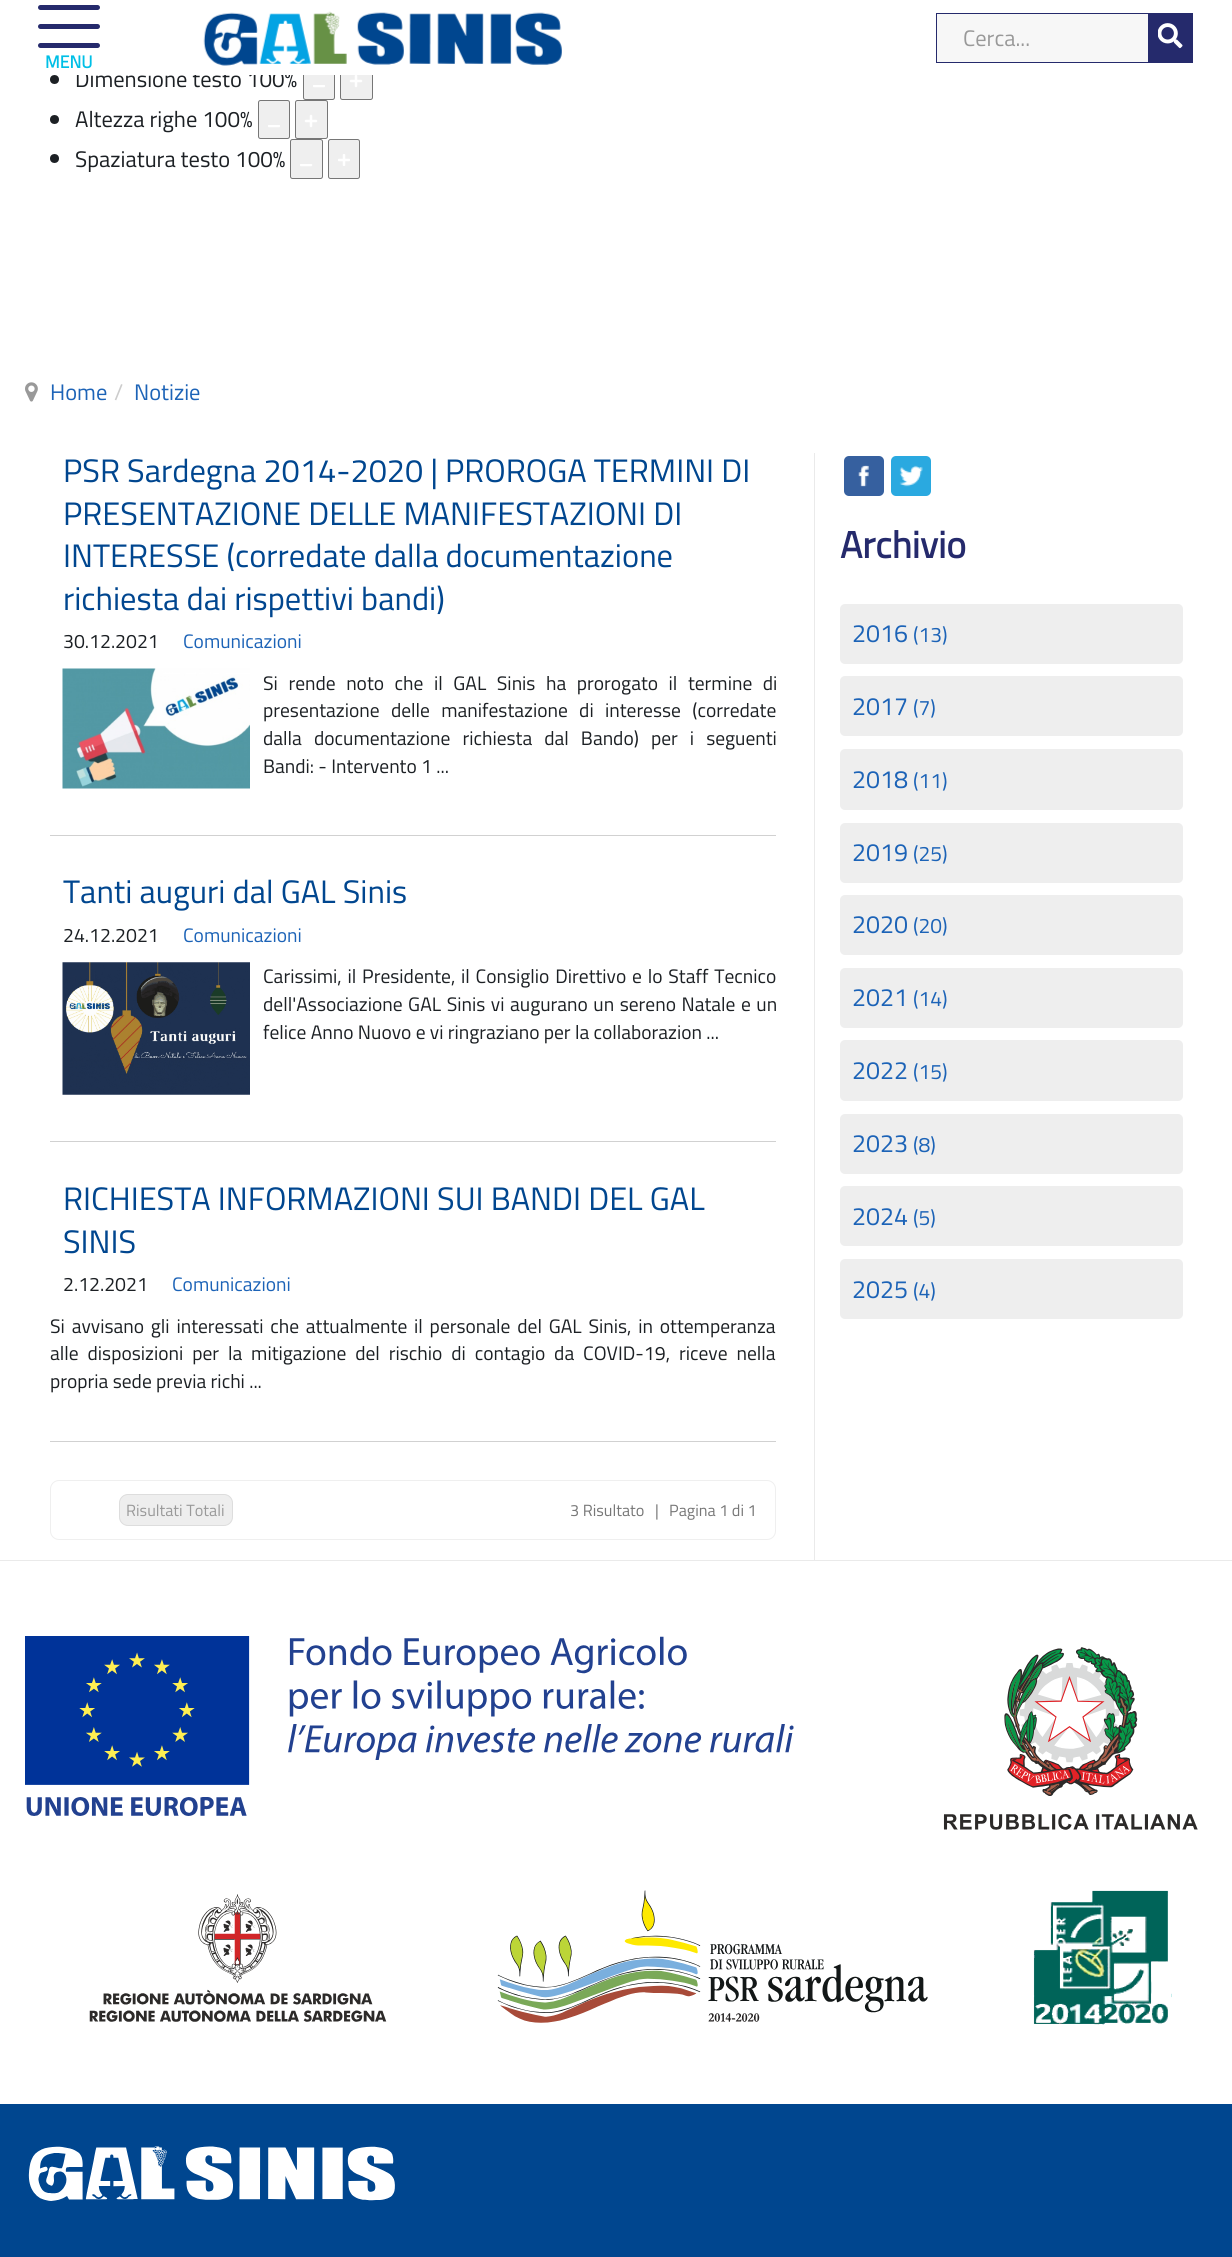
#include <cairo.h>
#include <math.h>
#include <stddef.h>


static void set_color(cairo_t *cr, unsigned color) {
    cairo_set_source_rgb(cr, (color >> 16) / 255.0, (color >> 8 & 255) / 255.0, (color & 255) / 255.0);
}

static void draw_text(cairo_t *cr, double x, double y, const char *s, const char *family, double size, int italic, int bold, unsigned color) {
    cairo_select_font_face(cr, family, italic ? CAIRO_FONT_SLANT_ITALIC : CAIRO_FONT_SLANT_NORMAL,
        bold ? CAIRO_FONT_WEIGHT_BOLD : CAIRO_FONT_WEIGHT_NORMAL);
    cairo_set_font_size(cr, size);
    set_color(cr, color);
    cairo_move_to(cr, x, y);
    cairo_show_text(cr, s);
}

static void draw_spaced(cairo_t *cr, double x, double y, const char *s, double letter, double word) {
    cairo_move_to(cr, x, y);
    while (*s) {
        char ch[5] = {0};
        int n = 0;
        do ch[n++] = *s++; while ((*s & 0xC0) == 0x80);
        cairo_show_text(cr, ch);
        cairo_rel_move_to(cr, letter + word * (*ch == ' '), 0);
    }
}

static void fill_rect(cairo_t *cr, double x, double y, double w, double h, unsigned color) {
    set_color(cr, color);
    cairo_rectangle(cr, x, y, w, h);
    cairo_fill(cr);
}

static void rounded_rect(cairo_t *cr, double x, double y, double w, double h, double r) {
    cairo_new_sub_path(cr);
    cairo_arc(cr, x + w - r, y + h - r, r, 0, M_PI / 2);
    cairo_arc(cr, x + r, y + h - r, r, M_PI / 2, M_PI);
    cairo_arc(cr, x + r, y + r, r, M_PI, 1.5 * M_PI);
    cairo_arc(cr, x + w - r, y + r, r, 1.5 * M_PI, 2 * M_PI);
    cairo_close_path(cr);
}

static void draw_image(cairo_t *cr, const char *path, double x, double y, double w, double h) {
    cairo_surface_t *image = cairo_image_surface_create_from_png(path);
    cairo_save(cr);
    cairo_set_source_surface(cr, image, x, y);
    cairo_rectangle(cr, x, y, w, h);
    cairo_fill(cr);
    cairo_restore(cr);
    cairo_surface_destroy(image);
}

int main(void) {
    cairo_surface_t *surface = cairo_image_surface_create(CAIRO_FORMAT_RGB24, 1232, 2257);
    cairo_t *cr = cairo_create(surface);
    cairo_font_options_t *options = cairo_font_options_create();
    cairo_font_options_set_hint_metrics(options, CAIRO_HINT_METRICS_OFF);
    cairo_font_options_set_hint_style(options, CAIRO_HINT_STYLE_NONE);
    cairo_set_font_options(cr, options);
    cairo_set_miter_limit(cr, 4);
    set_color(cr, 0xFFFFFF);
    cairo_paint(cr);
    draw_text(cr, 75, 87, "Dimensione testo 100%", "Titillium Web", 22.5, 0, 0, 0x1C2024);
    set_color(cr, 0xEFEFEF);
    rounded_rect(cr, 303.5, 60.5, 31, 39, 2);
    cairo_fill_preserve(cr);
    set_color(cr, 0x767676);
    cairo_set_line_width(cr, 1);
    cairo_stroke(cr);
    set_color(cr, 0xEFEFEF);
    rounded_rect(cr, 340.5, 60.5, 32, 39, 2);
    cairo_fill_preserve(cr);
    set_color(cr, 0x767676);
    cairo_stroke(cr);
    fill_rect(cr, 76, 60, 297, 15, 0xFFFFFF);
    draw_image(cr, "assets/img1.png", 203, 11, 359, 55);
    set_color(cr, 0xF7F7F7);
    cairo_rectangle(cr, 936.5, 13.5, 212, 49);
    cairo_fill_preserve(cr);
    set_color(cr, 0x252A6C);
    cairo_stroke(cr);
    draw_text(cr, 963, 46, "Cerca...", "Titillium Web", 22.5, 0, 0, 0x999999);
    fill_rect(cr, 1149, 13, 44, 50, 0x252A6C);
    draw_image(cr, "assets/img2.png", 1158, 23, 25, 26);
    rounded_rect(cr, 38, 24, 62, 5, 2.5);
    cairo_fill(cr);
    rounded_rect(cr, 38, 5, 62, 5, 2.5);
    cairo_fill(cr);
    rounded_rect(cr, 38, 43, 62, 5, 2.5);
    cairo_fill(cr);
    draw_text(cr, 45, 68, "MENU", "Titillium Web", 17.5, 0, 1, 0x00BFE6);
    draw_image(cr, "assets/img3.png", 25, 382, 13, 20);
    draw_text(cr, 50, 400, "Home", "Titillium Web", 22.5, 0, 0, 0x1C63B7);
    draw_text(cr, 114, 400, "/", "Titillium Web", 22.5, 0, 0, 0xCCCCCC);
    draw_text(cr, 134, 400, "Notizie", "Titillium Web", 22.5, 0, 0, 0x1C63B7);
    fill_rect(cr, 50, 835, 726, 1, 0xD1D1D1);
    draw_text(cr, 63, 482, "PSR Sardegna 2014-2020 | PROROGA TERMINI DI", "Titillium Web", 32.5, 0, 0, 0x00468F);
    draw_text(cr, 63, 525, "PRESENTAZIONE DELLE MANIFESTAZIONI DI", "Titillium Web", 32.5, 0, 0, 0x00468F);
    draw_text(cr, 63, 567, "INTERESSE (corredate dalla documentazione", "Titillium Web", 32.5, 0, 0, 0x00468F);
    draw_text(cr, 63, 610, "richiesta dai rispettivi bandi)", "Titillium Web", 32.5, 0, 0, 0x00468F);
    draw_text(cr, 63, 648, "30.12.2021", "Titillium Web", 19.5, 0, 0, 0x1C2024);
    draw_text(cr, 183, 648, "Comunicazioni", "Titillium Web", 19.5, 0, 0, 0x1C63B7);
    draw_image(cr, "assets/img4.png", 62, 668, 188, 121);
    set_color(cr, 0x1C2024);
    draw_spaced(cr, 263, 690, "Si rende noto che il GAL Sinis ha prorogato il termine di", 0, 6.25);
    draw_spaced(cr, 263, 717, "presentazione delle manifestazione di interesse (corredate", 0, 7);
    draw_spaced(cr, 263, 745, "dalla documentazione richiesta dal Bando) per i seguenti", 0, 7.75);
    draw_text(cr, 263, 773, "Bandi: - Intervento 1 ...", "Titillium Web", 19.5, 0, 0, 0x1C2024);
    fill_rect(cr, 50, 1141, 726, 1, 0xD1D1D1);
    draw_text(cr, 63, 903, "Tanti auguri dal GAL Sinis", "Titillium Web", 32.5, 0, 0, 0x00468F);
    draw_text(cr, 63, 942, "24.12.2021", "Titillium Web", 19.5, 0, 0, 0x1C2024);
    draw_text(cr, 183, 942, "Comunicazioni", "Titillium Web", 19.5, 0, 0, 0x1C63B7);
    draw_image(cr, "assets/img5.png", 62, 962, 188, 133);
    set_color(cr, 0x1C2024);
    draw_spaced(cr, 263, 983, "Carissimi, il Presidente, il Consiglio Direttivo e lo Staff Tecnico", 0, 1.5);
    draw_spaced(cr, 263, 1011, "dell'Associazione GAL Sinis vi augurano un sereno Natale e un", 0, 1.25);
    draw_text(cr, 263, 1039, "felice Anno Nuovo e vi ringraziano per la collaborazion ...", "Titillium Web", 19.5, 0, 0, 0x1C2024);
    fill_rect(cr, 50, 1441, 726, 1, 0xD1D1D1);
    draw_text(cr, 63, 1210, "RICHIESTA INFORMAZIONI SUI BANDI DEL GAL", "Titillium Web", 32.5, 0, 0, 0x00468F);
    draw_text(cr, 63, 1253, "SINIS", "Titillium Web", 32.5, 0, 0, 0x00468F);
    draw_text(cr, 63, 1291, "2.12.2021", "Titillium Web", 19.5, 0, 0, 0x1C2024);
    draw_text(cr, 172, 1291, "Comunicazioni", "Titillium Web", 19.5, 0, 0, 0x1C63B7);
    set_color(cr, 0x1C2024);
    draw_spaced(cr, 50, 1333, "Si avvisano gli interessati che attualmente il personale del GAL Sinis, in ottemperanza", 0, 2.5);
    draw_spaced(cr, 50, 1360, "alle disposizioni per la mitigazione del rischio di contagio da COVID-19, riceve nella", 0, 4.6);
    draw_text(cr, 50, 1388, "propria sede previa richi ...", "Titillium Web", 19.5, 0, 0, 0x1C2024);
    rounded_rect(cr, 50.5, 1480.5, 725, 59, 8.5);
    set_color(cr, 0xEFEFEF);
    cairo_stroke(cr);
    set_color(cr, 0xEEEEEE);
    rounded_rect(cr, 119.5, 1494.5, 113, 31, 8.5);
    cairo_fill_preserve(cr);
    set_color(cr, 0xDDDDDD);
    cairo_stroke(cr);
    draw_text(cr, 126, 1516, "Risultati Totali", "Titillium Web", 16.25, 0, 0, 0x999999);
    draw_text(cr, 570, 1516, "3 Risultato", "Titillium Web", 16.25, 0, 0, 0x777777);
    draw_text(cr, 655, 1516, "|", "Titillium Web", 16.25, 0, 0, 0x777777);
    draw_text(cr, 669, 1516, "Pagina 1 di 1", "Titillium Web", 16.25, 0, 0, 0x777777);
    fill_rect(cr, 814, 453, 1, 1107, 0xEAEAEA);
    set_color(cr, 0x36609F);
    rounded_rect(cr, 844, 456, 40, 40, 5);
    cairo_fill(cr);
    draw_image(cr, "assets/img6.png", 858, 465, 11, 22);
    set_color(cr, 0x2AA9E0);
    rounded_rect(cr, 891, 456, 40, 40, 5);
    cairo_fill(cr);
    draw_image(cr, "assets/img7.png", 899, 465, 24, 22);
    draw_text(cr, 840, 558, "Archivio", "Titillium Web", 37.5, 0, 1, 0x252A6C);
    set_color(cr, 0xEEEEEE);
    rounded_rect(cr, 840, 604, 343, 60, 5);
    cairo_fill(cr);
    draw_text(cr, 852, 642, "2016", "Titillium Web", 25, 0, 0, 0x1C63B7);
    draw_text(cr, 913, 642, "(13)", "Titillium Web", 21, 0, 0, 0x1C63B7);
    set_color(cr, 0xEEEEEE);
    rounded_rect(cr, 840, 676, 343, 60, 5);
    cairo_fill(cr);
    draw_text(cr, 852, 715, "2017", "Titillium Web", 25, 0, 0, 0x1C63B7);
    draw_text(cr, 913, 715, "(7)", "Titillium Web", 21, 0, 0, 0x1C63B7);
    set_color(cr, 0xEEEEEE);
    rounded_rect(cr, 840, 749, 343, 61, 5);
    cairo_fill(cr);
    draw_text(cr, 852, 788, "2018", "Titillium Web", 25, 0, 0, 0x1C63B7);
    draw_text(cr, 913, 788, "(11)", "Titillium Web", 21, 0, 0, 0x1C63B7);
    set_color(cr, 0xEEEEEE);
    rounded_rect(cr, 840, 823, 343, 60, 5);
    cairo_fill(cr);
    draw_text(cr, 852, 861, "2019", "Titillium Web", 25, 0, 0, 0x1C63B7);
    draw_text(cr, 913, 861, "(25)", "Titillium Web", 21, 0, 0, 0x1C63B7);
    set_color(cr, 0xEEEEEE);
    rounded_rect(cr, 840, 895, 343, 60, 5);
    cairo_fill(cr);
    draw_text(cr, 852, 933, "2020", "Titillium Web", 25, 0, 0, 0x1C63B7);
    draw_text(cr, 913, 933, "(20)", "Titillium Web", 21, 0, 0, 0x1C63B7);
    set_color(cr, 0xEEEEEE);
    rounded_rect(cr, 840, 968, 343, 60, 5);
    cairo_fill(cr);
    draw_text(cr, 852, 1006, "2021", "Titillium Web", 25, 0, 0, 0x1C63B7);
    draw_text(cr, 913, 1006, "(14)", "Titillium Web", 21, 0, 0, 0x1C63B7);
    set_color(cr, 0xEEEEEE);
    rounded_rect(cr, 840, 1040, 343, 61, 5);
    cairo_fill(cr);
    draw_text(cr, 852, 1079, "2022", "Titillium Web", 25, 0, 0, 0x1C63B7);
    draw_text(cr, 913, 1079, "(15)", "Titillium Web", 21, 0, 0, 0x1C63B7);
    set_color(cr, 0xEEEEEE);
    rounded_rect(cr, 840, 1114, 343, 60, 5);
    cairo_fill(cr);
    draw_text(cr, 852, 1152, "2023", "Titillium Web", 25, 0, 0, 0x1C63B7);
    draw_text(cr, 913, 1152, "(8)", "Titillium Web", 21, 0, 0, 0x1C63B7);
    set_color(cr, 0xEEEEEE);
    rounded_rect(cr, 840, 1186, 343, 60, 5);
    cairo_fill(cr);
    draw_text(cr, 852, 1225, "2024", "Titillium Web", 25, 0, 0, 0x1C63B7);
    draw_text(cr, 913, 1225, "(5)", "Titillium Web", 21, 0, 0, 0x1C63B7);
    set_color(cr, 0xEEEEEE);
    rounded_rect(cr, 840, 1259, 343, 60, 5);
    cairo_fill(cr);
    draw_text(cr, 852, 1298, "2025", "Titillium Web", 25, 0, 0, 0x1C63B7);
    draw_text(cr, 913, 1298, "(4)", "Titillium Web", 21, 0, 0, 0x1C63B7);
    fill_rect(cr, 0, 1560, 1232, 1, 0xEAEAEA);
    draw_image(cr, "assets/img8.png", 25, 1636, 769, 180);
    draw_image(cr, "assets/img9.png", 943, 1647, 255, 183);
    draw_image(cr, "assets/img10.png", 89, 1894, 298, 128);
    draw_image(cr, "assets/img11.png", 497, 1890, 431, 133);
    draw_image(cr, "assets/img12.png", 1033, 1890, 139, 135);
    fill_rect(cr, 0, 2104, 1232, 153, 0x00468F);
    draw_image(cr, "assets/img13.png", 28, 2146, 367, 55);
    set_color(cr, 0x1C2024);
    cairo_arc(cr, 54.5, 79.5, 4.5, 0, 2 * M_PI);
    cairo_fill(cr);
    cairo_save(cr);
    cairo_rectangle(cr, 313, 85, 12, 3);
    cairo_clip(cr);
    cairo_new_path(cr);
    cairo_move_to(cr, 324, 86);
    cairo_line_to(cr, 314, 86);
    set_color(cr, 0xFFFFFF);
    cairo_set_line_width(cr, 2.5);
    cairo_set_line_cap(cr, CAIRO_LINE_CAP_ROUND);
    cairo_stroke(cr);
    cairo_restore(cr);
    cairo_new_path(cr);
    cairo_move_to(cr, 356, 76);
    cairo_line_to(cr, 356, 86);
    cairo_move_to(cr, 361, 81);
    cairo_line_to(cr, 351, 81);
    set_color(cr, 0xFFFFFF);
    cairo_set_line_width(cr, 2.5);
    cairo_set_line_cap(cr, CAIRO_LINE_CAP_ROUND);
    cairo_stroke(cr);
    set_color(cr, 0x1C2024);
    cairo_arc(cr, 54.5, 119.5, 4.5, 0, 2 * M_PI);
    cairo_fill(cr);
    draw_text(cr, 75, 127, "Altezza righe 100%", "Titillium Web", 22.5, 0, 0, 0x1C2024);
    set_color(cr, 0xEFEFEF);
    rounded_rect(cr, 258.5, 100.5, 31, 38, 2);
    cairo_fill_preserve(cr);
    set_color(cr, 0x767676);
    cairo_set_line_width(cr, 1);
    cairo_set_line_cap(cr, CAIRO_LINE_CAP_BUTT);
    cairo_stroke(cr);
    cairo_save(cr);
    cairo_rectangle(cr, 268, 125, 12, 3);
    cairo_clip(cr);
    cairo_new_path(cr);
    cairo_move_to(cr, 279, 126);
    cairo_line_to(cr, 269, 126);
    set_color(cr, 0xFFFFFF);
    cairo_set_line_width(cr, 2.5);
    cairo_set_line_cap(cr, CAIRO_LINE_CAP_ROUND);
    cairo_stroke(cr);
    cairo_restore(cr);
    set_color(cr, 0xEFEFEF);
    rounded_rect(cr, 295.5, 100.5, 32, 38, 2);
    cairo_fill_preserve(cr);
    set_color(cr, 0x767676);
    cairo_stroke(cr);
    cairo_new_path(cr);
    cairo_move_to(cr, 311, 116);
    cairo_line_to(cr, 311, 126);
    cairo_move_to(cr, 316, 121);
    cairo_line_to(cr, 306, 121);
    set_color(cr, 0xFFFFFF);
    cairo_set_line_width(cr, 2.5);
    cairo_set_line_cap(cr, CAIRO_LINE_CAP_ROUND);
    cairo_stroke(cr);
    set_color(cr, 0x1C2024);
    cairo_arc(cr, 54.5, 158.5, 4.5, 0, 2 * M_PI);
    cairo_fill(cr);
    draw_text(cr, 75, 167, "Spaziatura testo 100%", "Titillium Web", 22.5, 0, 0, 0x1C2024);
    set_color(cr, 0xEFEFEF);
    rounded_rect(cr, 290.5, 139.5, 32, 39, 2);
    cairo_fill_preserve(cr);
    set_color(cr, 0x767676);
    cairo_set_line_width(cr, 1);
    cairo_set_line_cap(cr, CAIRO_LINE_CAP_BUTT);
    cairo_stroke(cr);
    cairo_save(cr);
    cairo_rectangle(cr, 300, 164, 13, 3);
    cairo_clip(cr);
    cairo_new_path(cr);
    cairo_move_to(cr, 311, 165);
    cairo_line_to(cr, 301, 165);
    set_color(cr, 0xFFFFFF);
    cairo_set_line_width(cr, 2.5);
    cairo_set_line_cap(cr, CAIRO_LINE_CAP_ROUND);
    cairo_stroke(cr);
    cairo_restore(cr);
    set_color(cr, 0xEFEFEF);
    rounded_rect(cr, 328.5, 139.5, 31, 39, 2);
    cairo_fill_preserve(cr);
    set_color(cr, 0x767676);
    cairo_stroke(cr);
    cairo_save(cr);
    cairo_rectangle(cr, 338, 154, 12, 12);
    cairo_clip(cr);
    cairo_new_path(cr);
    cairo_move_to(cr, 344, 155);
    cairo_line_to(cr, 344, 165);
    cairo_move_to(cr, 349, 160);
    cairo_line_to(cr, 339, 160);
    set_color(cr, 0xFFFFFF);
    cairo_set_line_width(cr, 2.5);
    cairo_set_line_cap(cr, CAIRO_LINE_CAP_ROUND);
    cairo_stroke(cr);
    cairo_restore(cr);
    cairo_surface_write_to_png(surface, "output.png");
    cairo_font_options_destroy(options);
    cairo_destroy(cr);
    cairo_surface_destroy(surface);
    return 0;
}
